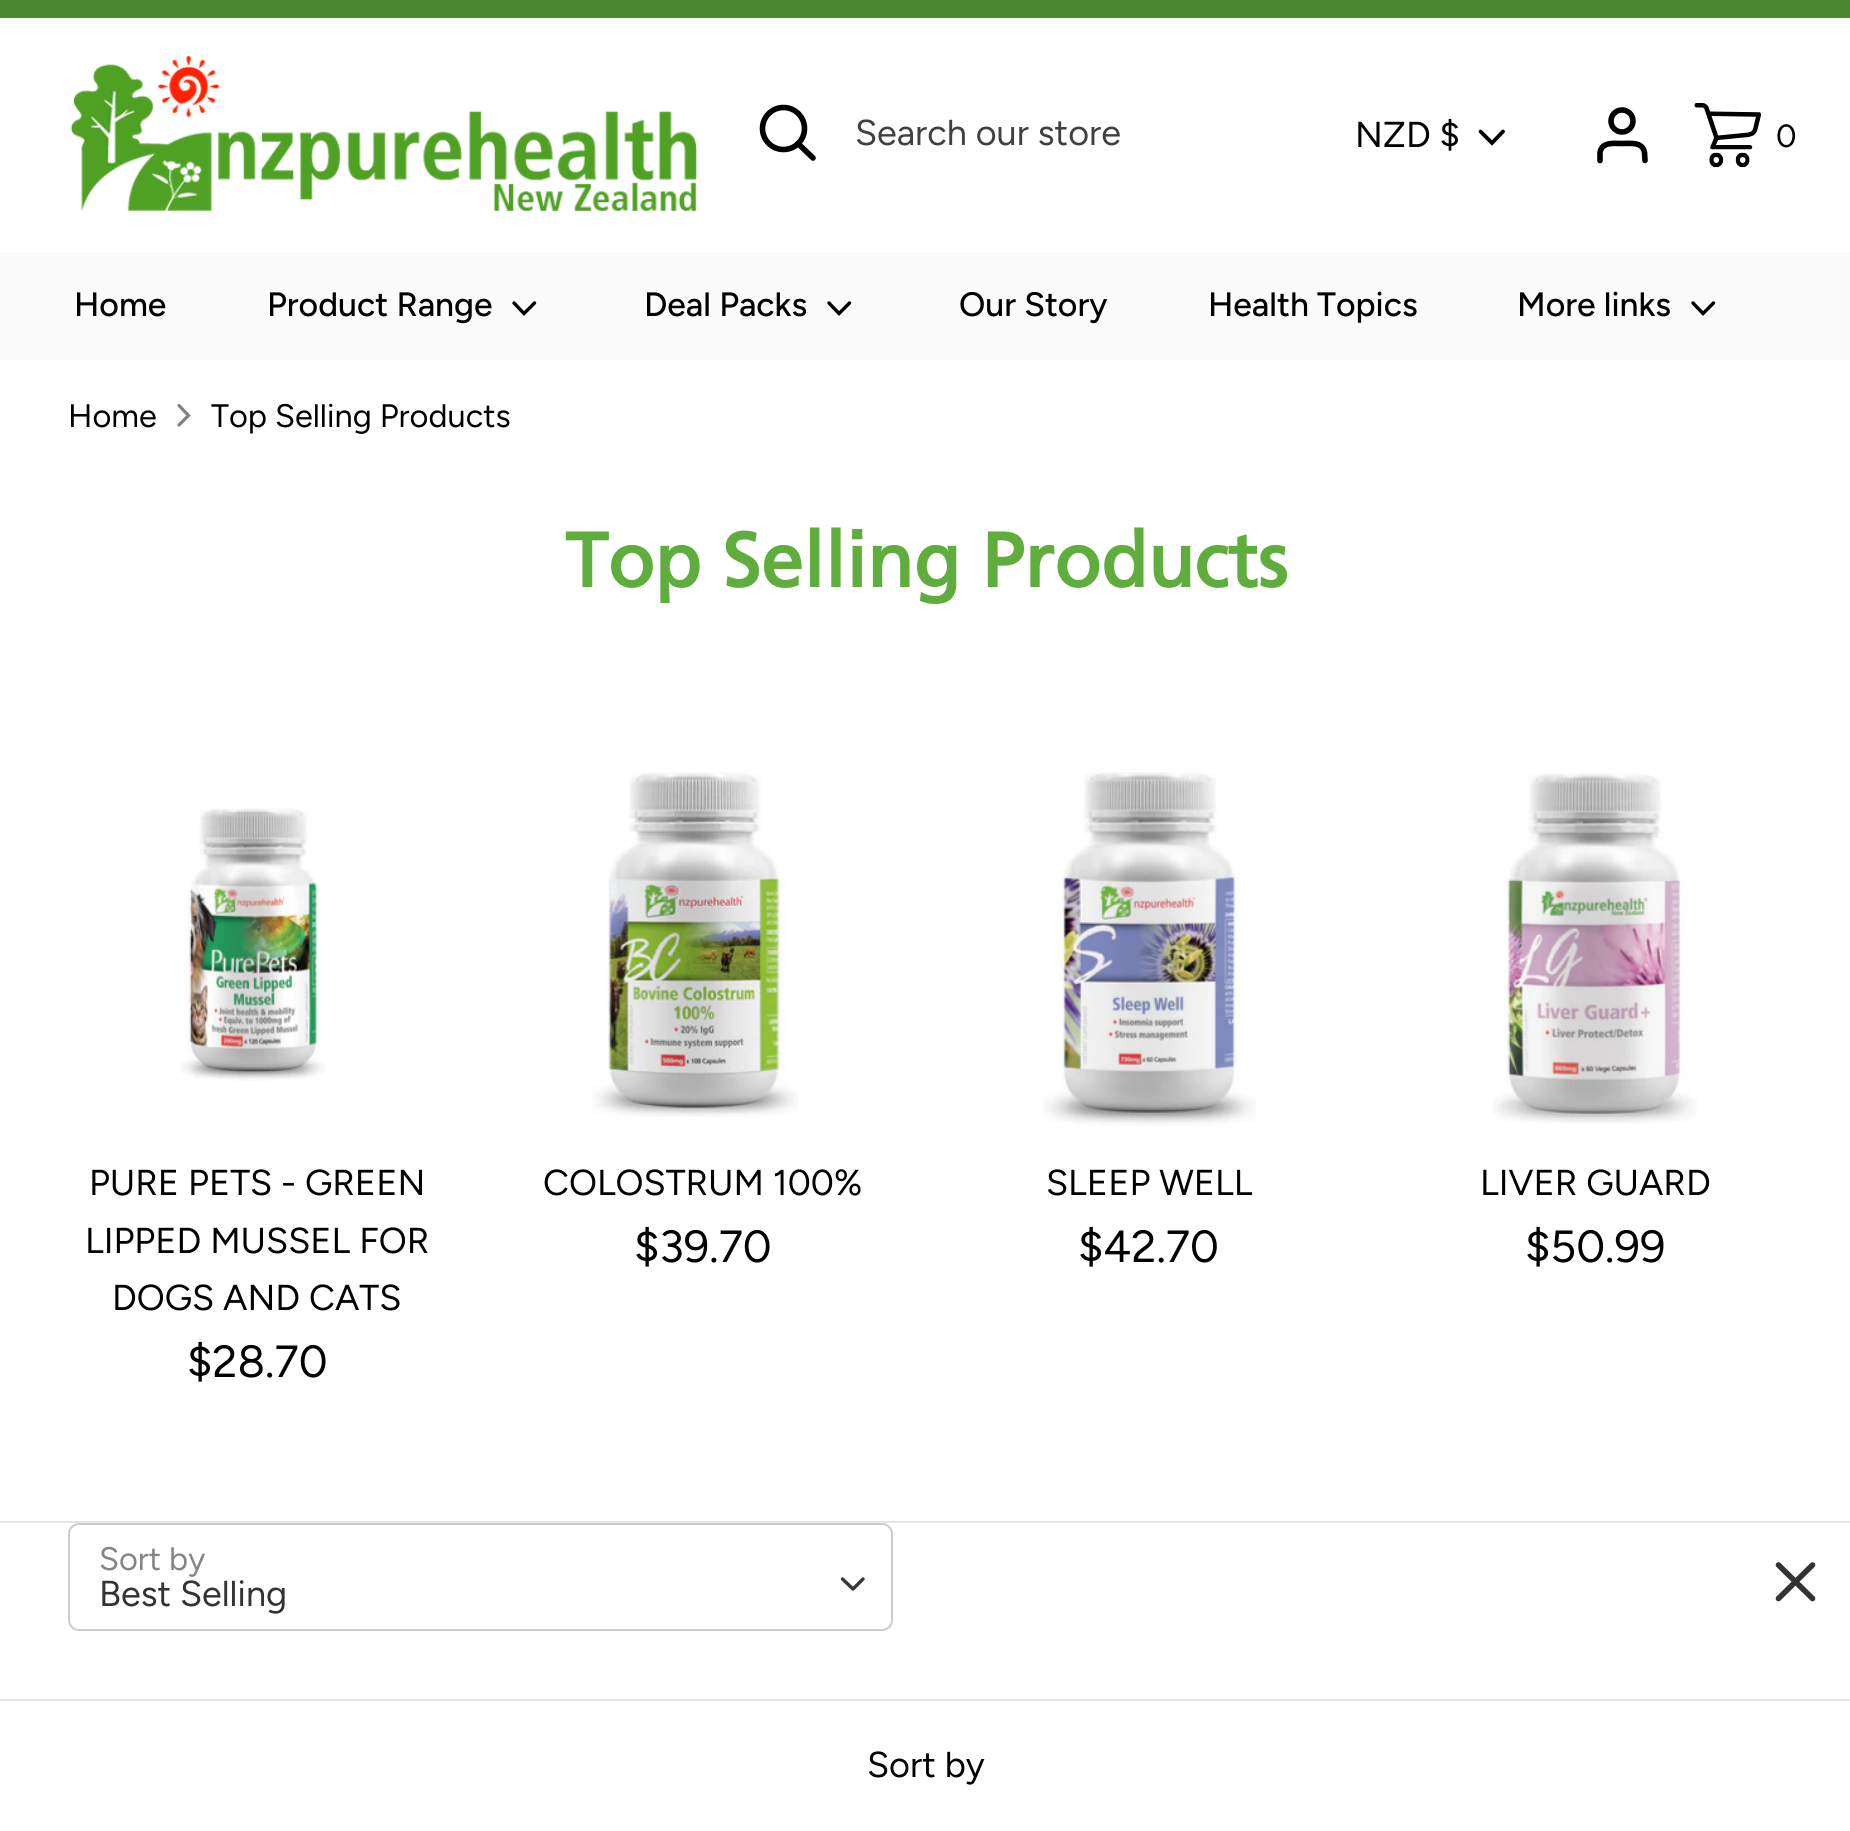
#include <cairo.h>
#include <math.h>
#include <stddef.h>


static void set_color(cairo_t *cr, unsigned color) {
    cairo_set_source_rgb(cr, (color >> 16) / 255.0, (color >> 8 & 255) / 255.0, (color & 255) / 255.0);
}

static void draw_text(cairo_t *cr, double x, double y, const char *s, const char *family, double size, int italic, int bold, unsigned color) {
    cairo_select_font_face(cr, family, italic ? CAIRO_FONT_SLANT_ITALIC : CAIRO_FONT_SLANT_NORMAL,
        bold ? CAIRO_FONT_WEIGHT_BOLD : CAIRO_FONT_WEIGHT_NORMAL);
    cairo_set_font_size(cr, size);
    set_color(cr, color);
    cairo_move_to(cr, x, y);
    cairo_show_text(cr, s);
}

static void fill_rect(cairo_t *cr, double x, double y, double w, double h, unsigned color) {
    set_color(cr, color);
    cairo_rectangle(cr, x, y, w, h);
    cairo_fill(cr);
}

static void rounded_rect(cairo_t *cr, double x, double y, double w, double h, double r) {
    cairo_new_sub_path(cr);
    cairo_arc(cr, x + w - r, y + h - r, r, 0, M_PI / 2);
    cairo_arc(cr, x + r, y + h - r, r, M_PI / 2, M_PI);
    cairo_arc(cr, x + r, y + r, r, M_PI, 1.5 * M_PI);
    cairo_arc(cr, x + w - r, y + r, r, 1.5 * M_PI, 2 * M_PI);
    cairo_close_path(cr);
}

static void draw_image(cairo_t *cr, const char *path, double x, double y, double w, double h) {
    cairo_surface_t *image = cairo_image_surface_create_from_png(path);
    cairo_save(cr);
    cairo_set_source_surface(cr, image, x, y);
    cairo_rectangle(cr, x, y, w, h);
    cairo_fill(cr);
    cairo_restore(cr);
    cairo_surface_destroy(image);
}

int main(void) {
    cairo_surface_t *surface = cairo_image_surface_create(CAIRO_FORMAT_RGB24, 1850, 1831);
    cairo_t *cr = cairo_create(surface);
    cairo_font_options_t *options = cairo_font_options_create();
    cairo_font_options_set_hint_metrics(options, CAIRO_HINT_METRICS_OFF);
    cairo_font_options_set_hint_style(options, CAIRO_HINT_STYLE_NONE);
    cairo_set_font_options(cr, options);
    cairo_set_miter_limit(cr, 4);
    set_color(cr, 0xFFFFFF);
    cairo_paint(cr);
    fill_rect(cr, 0, 0, 1850, 18, 0x4A8730);
    draw_image(cr, "assets/img1.png", 70, 56, 627, 156);
    cairo_arc(cr, 783.5, 128.5, 21, 0, 2 * M_PI);
    set_color(cr, 0x000000);
    cairo_set_line_width(cr, 5.6);
    cairo_stroke(cr);
    cairo_new_path(cr);
    cairo_move_to(cr, 813, 158);
    cairo_line_to(cr, 798, 143.5);
    cairo_set_line_cap(cr, CAIRO_LINE_CAP_ROUND);
    cairo_stroke(cr);
    draw_text(cr, 855, 145, "Search our store", "Figtree", 36, 0, 0, 0x404040);
    draw_text(cr, 1355, 147, "NZD $", "Figtree", 36, 0, 0, 0x000000);
    cairo_new_path(cr);
    cairo_move_to(cr, 1480.5, 131.5);
    cairo_line_to(cr, 1492, 143);
    cairo_line_to(cr, 1503, 131.5);
    cairo_set_line_width(cr, 3.8);
    cairo_stroke(cr);
    cairo_new_path(cr);
    cairo_move_to(cr, 1645, 160.5);
    cairo_line_to(cr, 1644.5, 152.5);
    cairo_curve_to(cr, 1642.5, 141.5, 1630.5, 143.5, 1622, 143.5);
    cairo_curve_to(cr, 1614, 143.5, 1602, 141.5, 1600, 152.5);
    cairo_line_to(cr, 1600, 160.5);
    cairo_set_line_width(cr, 5.6);
    cairo_stroke(cr);
    cairo_arc(cr, 1622, 121, 11, 0, 2 * M_PI);
    cairo_set_line_cap(cr, CAIRO_LINE_CAP_BUTT);
    cairo_stroke(cr);
    draw_image(cr, "assets/img2.png", 1694, 103, 67, 65);
    draw_text(cr, 1776, 147, "0", "Figtree", 32, 0, 0, 0x000000);
    fill_rect(cr, 0, 252, 1850, 108, 0xFBFBFB);
    draw_text(cr, 74, 316, "Home", "Figtree Medium", 33.75, 0, 0, 0x000000);
    draw_text(cr, 267, 316, "Product Range", "Figtree Medium", 33.75, 0, 0, 0x000000);
    cairo_new_path(cr);
    cairo_move_to(cr, 514, 303);
    cairo_line_to(cr, 524, 313.5);
    cairo_line_to(cr, 534.5, 303);
    cairo_set_line_width(cr, 3.4);
    cairo_set_line_cap(cr, CAIRO_LINE_CAP_ROUND);
    cairo_stroke(cr);
    draw_text(cr, 644, 316, "Deal Packs", "Figtree Medium", 33.75, 0, 0, 0x000000);
    cairo_new_path(cr);
    cairo_move_to(cr, 829, 303);
    cairo_line_to(cr, 839, 313.5);
    cairo_line_to(cr, 849.5, 303);
    cairo_stroke(cr);
    draw_text(cr, 959, 316, "Our Story", "Figtree Medium", 33.75, 0, 0, 0x000000);
    draw_text(cr, 1208, 316, "Health Topics", "Figtree Medium", 33.75, 0, 0, 0x000000);
    draw_text(cr, 1517, 316, "More links", "Figtree Medium", 33.75, 0, 0, 0x000000);
    cairo_new_path(cr);
    cairo_move_to(cr, 1693, 303);
    cairo_line_to(cr, 1703, 313.5);
    cairo_line_to(cr, 1713.5, 303);
    cairo_stroke(cr);
    draw_text(cr, 68, 427, "Home", "Figtree", 32.5, 0, 0, 0x000000);
    cairo_new_path(cr);
    cairo_move_to(cr, 179, 425);
    cairo_line_to(cr, 188.5, 415.5);
    cairo_line_to(cr, 179, 405.5);
    set_color(cr, 0x808080);
    cairo_set_line_width(cr, 3.2);
    cairo_stroke(cr);
    draw_text(cr, 211, 427, "Top Selling Products", "Figtree", 32.5, 0, 0, 0x000000);
    draw_text(cr, 565, 587, "Top Selling Products", "Frutiger", 76.5, 0, 1, 0x5FAD3D);
    draw_image(cr, "assets/img3.png", 180, 808, 145, 273);
    draw_text(cr, 89, 1195, "PURE PETS - GREEN", "Figtree", 36, 0, 0, 0x000000);
    draw_text(cr, 85, 1253, "LIPPED MUSSEL FOR", "Figtree", 36, 0, 0, 0x000000);
    draw_text(cr, 112, 1310, "DOGS AND CATS", "Figtree", 36, 0, 0, 0x000000);
    draw_text(cr, 187, 1377, "$28.70", "Figtree", 45, 0, 0, 0x000000);
    draw_image(cr, "assets/img4.png", 592, 772, 206, 345);
    draw_text(cr, 543, 1195, "COLOSTRUM 100%", "Figtree", 36, 0, 0, 0x000000);
    draw_text(cr, 634, 1262, "$39.70", "Figtree", 45, 0, 0, 0x000000);
    draw_image(cr, "assets/img5.png", 1043, 772, 213, 354);
    draw_text(cr, 1046, 1195, "SLEEP WELL", "Figtree", 36, 0, 0, 0x000000);
    draw_text(cr, 1078, 1262, "$42.70", "Figtree", 45, 0, 0, 0x000000);
    draw_image(cr, "assets/img6.png", 1492, 773, 206, 351);
    draw_text(cr, 1480, 1195, "LIVER GUARD", "Figtree", 36, 0, 0, 0x000000);
    draw_text(cr, 1525, 1262, "$50.99", "Figtree", 45, 0, 0, 0x000000);
    fill_rect(cr, 0, 1521, 1850, 2, 0xE5E5E5);
    draw_text(cr, 99, 1570, "Sort by", "Figtree", 32.5, 0, 0, 0x858585);
    rounded_rect(cr, 69, 1524, 823, 106, 10);
    set_color(cr, 0xCCCCCC);
    cairo_set_line_width(cr, 2);
    cairo_set_line_cap(cr, CAIRO_LINE_CAP_BUTT);
    cairo_stroke(cr);
    draw_text(cr, 99, 1606, "Best Selling", "Figtree", 36, 0, 0, 0x333333);
    cairo_new_path(cr);
    cairo_move_to(cr, 842.5, 1579);
    cairo_line_to(cr, 853, 1589);
    cairo_line_to(cr, 863, 1579);
    set_color(cr, 0x373737);
    cairo_set_line_width(cr, 3.4);
    cairo_set_line_cap(cr, CAIRO_LINE_CAP_ROUND);
    cairo_set_line_join(cr, CAIRO_LINE_JOIN_ROUND);
    cairo_stroke(cr);
    cairo_new_path(cr);
    cairo_move_to(cr, 1812.5, 1565);
    cairo_line_to(cr, 1778.5, 1598.5);
    cairo_move_to(cr, 1778.5, 1565);
    cairo_line_to(cr, 1812.5, 1598.5);
    set_color(cr, 0x333333);
    cairo_set_line_width(cr, 5.6);
    cairo_set_line_join(cr, CAIRO_LINE_JOIN_MITER);
    cairo_stroke(cr);
    fill_rect(cr, 0, 1699, 1850, 2, 0xE5E5E5);
    draw_text(cr, 867, 1777, "Sort by", "Figtree", 36, 0, 0, 0x000000);
    cairo_surface_write_to_png(surface, "output.png");
    cairo_font_options_destroy(options);
    cairo_destroy(cr);
    cairo_surface_destroy(surface);
    return 0;
}
